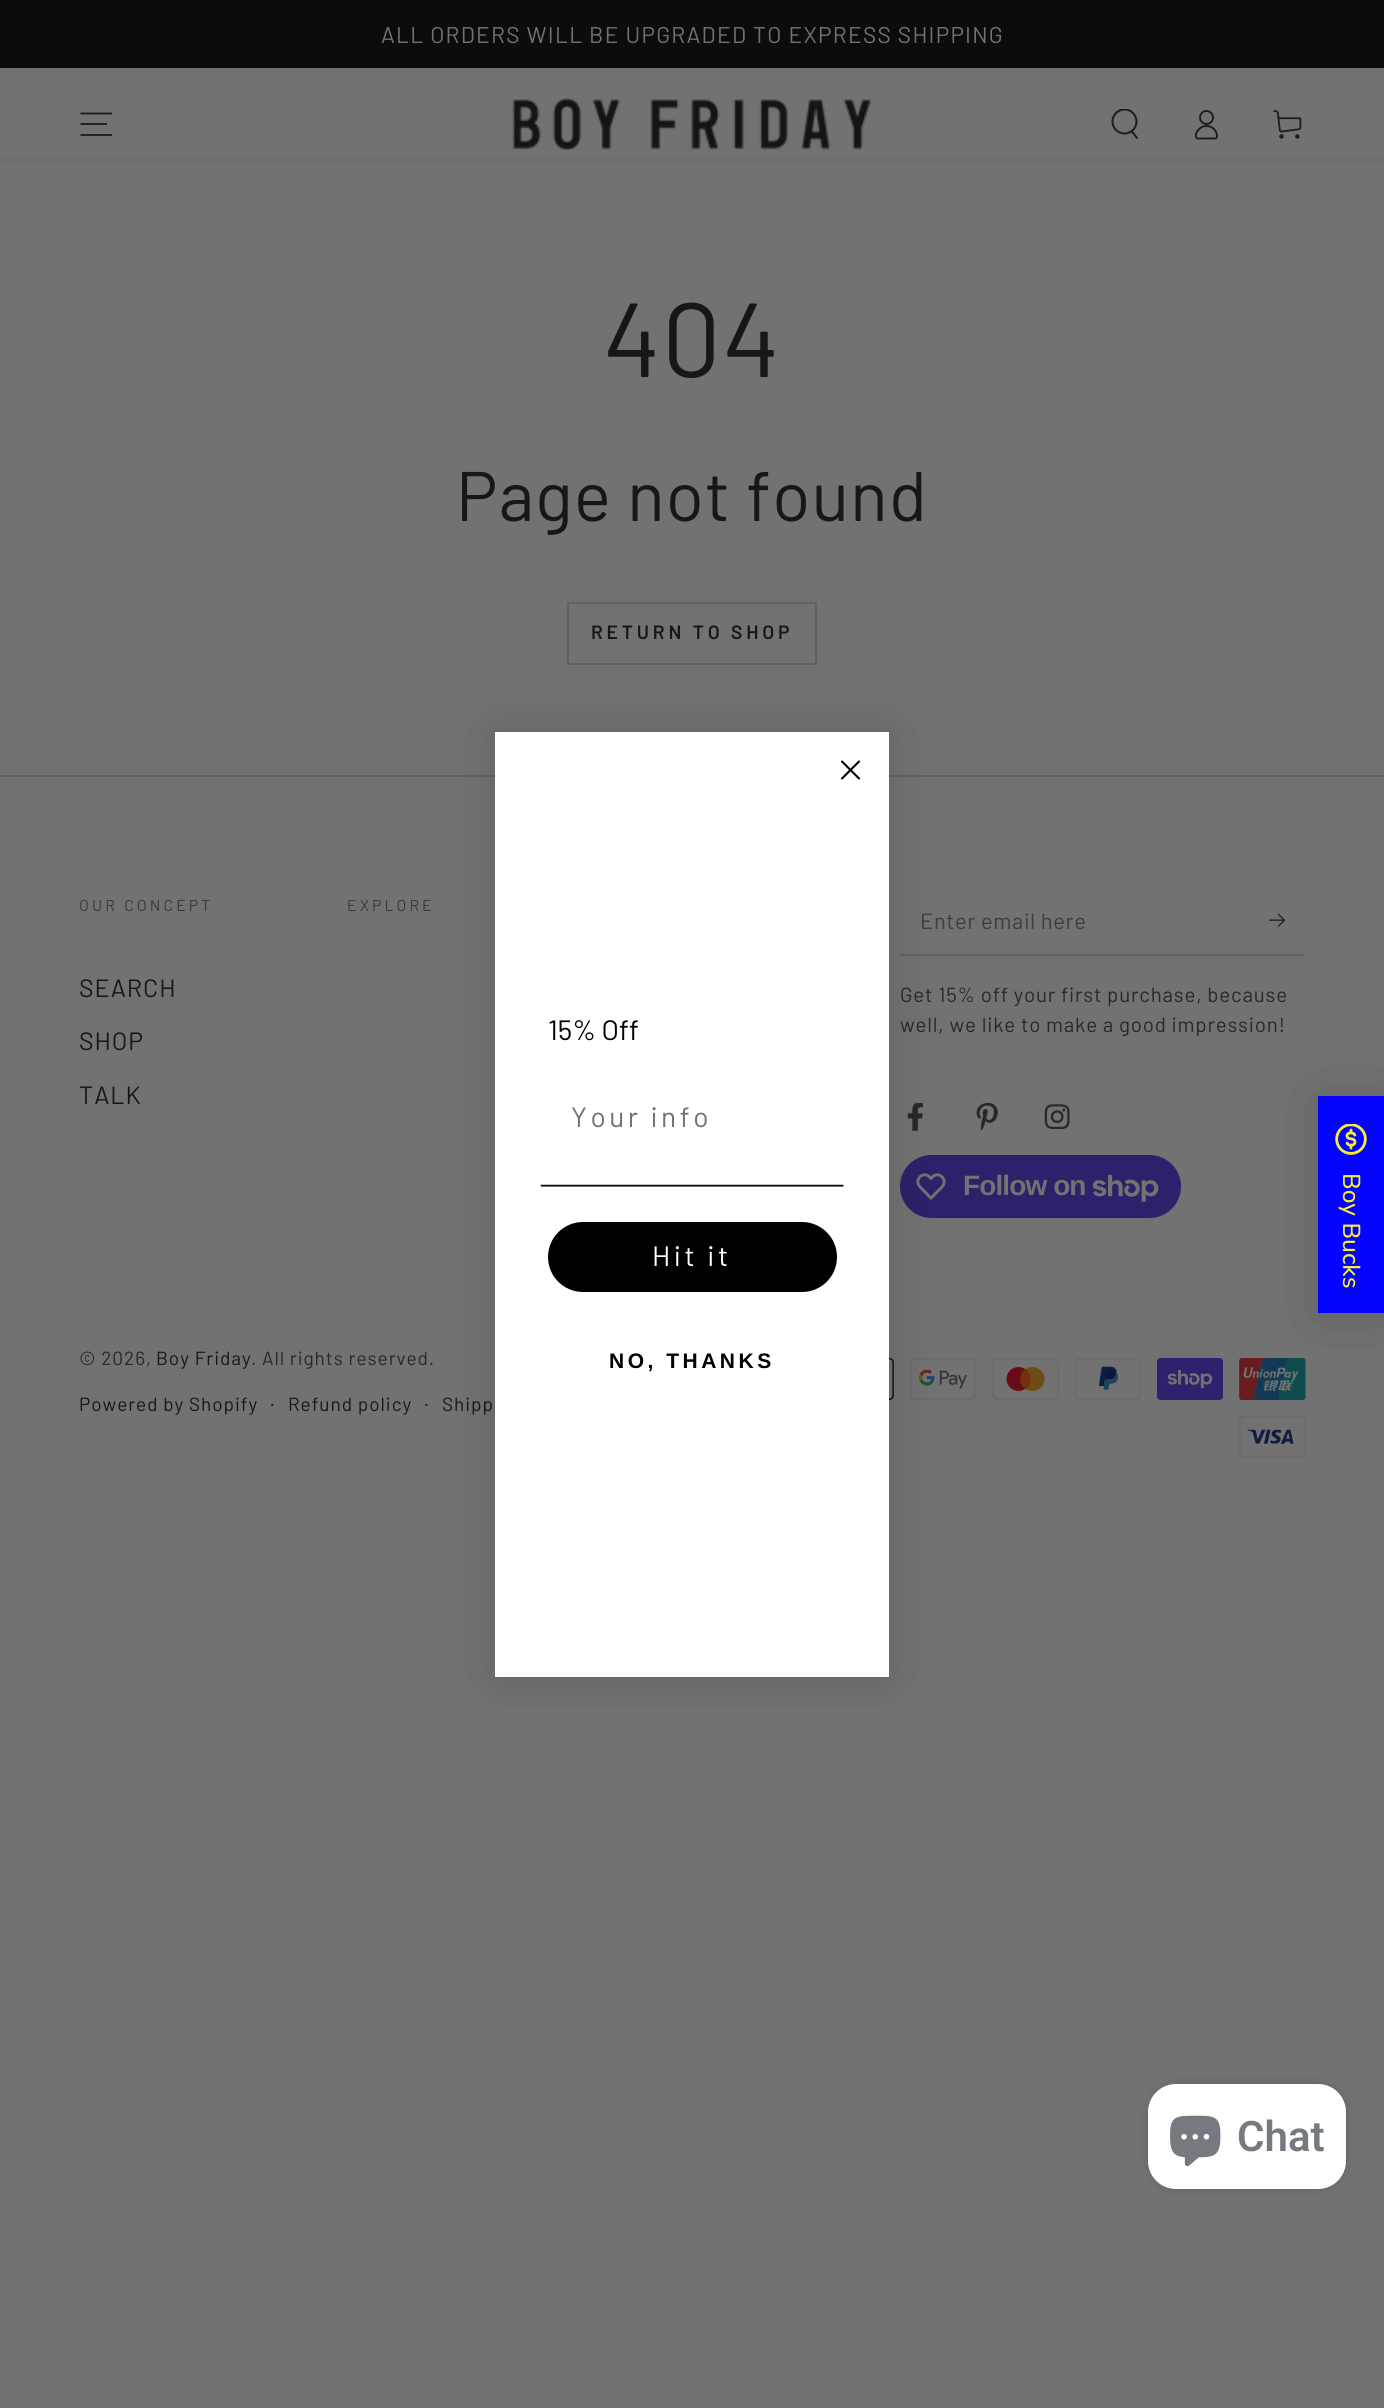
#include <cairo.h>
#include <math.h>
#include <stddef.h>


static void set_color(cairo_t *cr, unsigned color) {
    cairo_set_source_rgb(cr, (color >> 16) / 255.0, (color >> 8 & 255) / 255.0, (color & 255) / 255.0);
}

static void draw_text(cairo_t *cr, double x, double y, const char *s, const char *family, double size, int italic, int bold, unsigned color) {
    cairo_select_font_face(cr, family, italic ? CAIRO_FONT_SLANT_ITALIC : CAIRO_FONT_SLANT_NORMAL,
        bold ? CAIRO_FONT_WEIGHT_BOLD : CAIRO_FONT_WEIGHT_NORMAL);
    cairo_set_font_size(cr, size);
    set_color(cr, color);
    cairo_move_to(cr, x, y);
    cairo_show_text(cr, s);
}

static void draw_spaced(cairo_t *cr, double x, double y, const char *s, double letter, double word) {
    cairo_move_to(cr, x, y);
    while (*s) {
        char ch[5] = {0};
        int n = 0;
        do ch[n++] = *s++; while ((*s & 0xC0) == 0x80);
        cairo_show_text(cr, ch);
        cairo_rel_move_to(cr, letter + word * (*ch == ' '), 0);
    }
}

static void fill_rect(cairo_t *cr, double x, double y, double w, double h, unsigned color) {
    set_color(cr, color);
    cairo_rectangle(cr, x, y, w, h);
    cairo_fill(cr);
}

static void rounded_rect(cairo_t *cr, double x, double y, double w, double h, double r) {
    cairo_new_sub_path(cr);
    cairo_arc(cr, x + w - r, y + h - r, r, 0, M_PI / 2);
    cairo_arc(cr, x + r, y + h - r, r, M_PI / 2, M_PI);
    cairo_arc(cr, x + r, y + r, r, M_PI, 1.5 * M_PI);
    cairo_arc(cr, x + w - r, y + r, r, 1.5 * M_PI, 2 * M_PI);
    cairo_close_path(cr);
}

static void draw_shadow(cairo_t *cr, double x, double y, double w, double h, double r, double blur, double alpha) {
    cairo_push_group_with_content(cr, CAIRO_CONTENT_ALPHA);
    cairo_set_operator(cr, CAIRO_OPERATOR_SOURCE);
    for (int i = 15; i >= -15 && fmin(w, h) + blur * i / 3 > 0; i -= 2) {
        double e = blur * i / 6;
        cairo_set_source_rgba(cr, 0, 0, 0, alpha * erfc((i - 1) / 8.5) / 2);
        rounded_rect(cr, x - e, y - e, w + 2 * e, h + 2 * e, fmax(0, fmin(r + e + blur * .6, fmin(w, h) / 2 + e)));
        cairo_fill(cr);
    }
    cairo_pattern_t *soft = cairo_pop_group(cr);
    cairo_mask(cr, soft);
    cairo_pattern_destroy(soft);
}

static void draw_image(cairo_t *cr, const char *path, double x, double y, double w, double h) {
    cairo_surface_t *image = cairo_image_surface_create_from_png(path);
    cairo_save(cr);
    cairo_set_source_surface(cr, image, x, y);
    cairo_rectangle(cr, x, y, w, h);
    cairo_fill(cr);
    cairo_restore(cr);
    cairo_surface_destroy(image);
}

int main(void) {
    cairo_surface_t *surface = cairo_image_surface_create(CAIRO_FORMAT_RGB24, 1384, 2408);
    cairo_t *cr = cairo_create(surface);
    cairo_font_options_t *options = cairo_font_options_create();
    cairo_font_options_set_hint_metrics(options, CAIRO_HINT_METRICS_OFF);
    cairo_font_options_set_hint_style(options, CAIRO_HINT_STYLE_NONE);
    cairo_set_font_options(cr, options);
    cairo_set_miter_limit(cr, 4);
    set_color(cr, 0x727272);
    cairo_paint(cr);
    fill_rect(cr, 0, 0, 1384, 68, 0x0C0C0C);
    cairo_select_font_face(cr, "Barlow", CAIRO_FONT_SLANT_NORMAL, CAIRO_FONT_WEIGHT_NORMAL);
    cairo_set_font_size(cr, 22.75);
    set_color(cr, 0x727272);
    draw_spaced(cr, 381, 43, "ALL ORDERS WILL BE UPGRADED TO EXPRESS SHIPPING", 1.25, 0);
    fill_rect(cr, 0, 159, 1384, 2, 0x6D6D6E);
    cairo_new_path(cr);
    cairo_move_to(cr, 80.5, 135);
    cairo_line_to(cr, 112, 135);
    cairo_move_to(cr, 80.5, 124);
    cairo_line_to(cr, 107, 124);
    cairo_move_to(cr, 80.5, 113.5);
    cairo_line_to(cr, 112, 113.5);
    set_color(cr, 0x1C1C1C);
    cairo_set_line_width(cr, 1.8);
    cairo_stroke(cr);
    draw_image(cr, "assets/img1.png", 512, 98, 360, 53);
    cairo_save(cr);
    cairo_rectangle(cr, 1110, 109, 31, 31);
    cairo_clip(cr);
    cairo_arc(cr, 1124.5, 121.5, 12, 0, 2 * M_PI);
    cairo_set_line_width(cr, 2);
    cairo_stroke(cr);
    cairo_restore(cr);
    cairo_new_path(cr);
    cairo_move_to(cr, 1132, 131.5);
    cairo_line_to(cr, 1137, 138);
    cairo_set_line_width(cr, 2);
    cairo_set_line_cap(cr, CAIRO_LINE_CAP_ROUND);
    cairo_stroke(cr);
    cairo_new_path(cr);
    cairo_move_to(cr, 1206.5, 126);
    cairo_curve_to(cr, 1197, 126, 1192.5, 138.5, 1198.5, 138.5);
    cairo_line_to(cr, 1215.5, 138.5);
    cairo_curve_to(cr, 1219, 137, 1215.5, 130.5, 1214, 129);
    cairo_curve_to(cr, 1212, 127, 1209, 126, 1206.5, 126);
    cairo_close_path(cr);
    cairo_set_line_width(cr, 1.9);
    cairo_set_line_cap(cr, CAIRO_LINE_CAP_BUTT);
    cairo_stroke(cr);
    cairo_arc(cr, 1206.5, 117.5, 6.5, 0, 2 * M_PI);
    cairo_stroke(cr);
    draw_image(cr, "assets/img2.png", 1273, 110, 29, 29);
    cairo_set_font_size(cr, 105);
    set_color(cr, 0x161716);
    draw_spaced(cr, 603, 377, "404", 1, 0);
    cairo_set_font_size(cr, 70);
    draw_spaced(cr, 456, 521, "Page not found", 1, 0);
    cairo_rectangle(cr, 568, 603, 248, 61);
    set_color(cr, 0x606163);
    cairo_set_line_width(cr, 2);
    cairo_stroke(cr);
    cairo_select_font_face(cr, "Barlow SemiBold", CAIRO_FONT_SLANT_NORMAL, CAIRO_FONT_WEIGHT_NORMAL);
    cairo_set_font_size(cr, 19.25);
    set_color(cr, 0x161716);
    draw_spaced(cr, 591, 639, "RETURN TO SHOP", 3.8, 0);
    fill_rect(cr, 0, 775, 1384, 2, 0x606163);
    cairo_select_font_face(cr, "Barlow", CAIRO_FONT_SLANT_NORMAL, CAIRO_FONT_WEIGHT_NORMAL);
    cairo_set_font_size(cr, 15.75);
    set_color(cr, 0x37393C);
    draw_spaced(cr, 79, 911, "OUR CONCEPT", 3.1, 0);
    cairo_set_font_size(cr, 25);
    set_color(cr, 0x161716);
    draw_spaced(cr, 79, 997, "SEARCH", 0.95, 0);
    draw_spaced(cr, 79, 1050, "SHOP", 0.95, 0);
    draw_spaced(cr, 79, 1104, "TALK", 0.95, 0);
    cairo_set_font_size(cr, 15.75);
    set_color(cr, 0x37393C);
    draw_spaced(cr, 347, 911, "EXPLORE", 3.1, 0);
    set_color(cr, 0x606163);
    cairo_new_path(cr);
    cairo_move_to(cr, 1306, 956);
    cairo_line_to(cr, 900, 956);
    cairo_line_to(cr, 901, 954);
    cairo_line_to(cr, 1304, 954);
    cairo_close_path(cr);
    cairo_fill(cr);
    cairo_set_font_size(cr, 22);
    set_color(cr, 0x3D3E40);
    draw_spaced(cr, 920, 929, "Enter email here", 0.6, 0);
    draw_image(cr, "assets/img3.png", 1269, 913, 17, 14);
    cairo_set_font_size(cr, 20.5);
    set_color(cr, 0x26282A);
    draw_spaced(cr, 900, 1002, "Get 15% off your first purchase, because", 0.8, 0);
    draw_spaced(cr, 900, 1032, "well, we like to make a good impression!", 0.8, 0);
    draw_image(cr, "assets/img4.png", 907, 1103, 16, 28);
    draw_image(cr, "assets/img5.png", 976, 1103, 22, 28);
    draw_image(cr, "assets/img6.png", 1044, 1104, 26, 26);
    set_color(cr, 0x2E206A);
    rounded_rect(cr, 900, 1155, 281, 63, 31.5);
    cairo_fill(cr);
    draw_image(cr, "assets/img7.png", 916, 1173, 30, 27);
    cairo_select_font_face(cr, "Liberation Sans", CAIRO_FONT_SLANT_NORMAL, CAIRO_FONT_WEIGHT_BOLD);
    cairo_set_font_size(cr, 28);
    set_color(cr, 0x727272);
    draw_spaced(cr, 963, 1195, "Follow on", -0.9, 0);
    draw_image(cr, "assets/img8.png", 1092, 1174, 67, 28);
    cairo_select_font_face(cr, "Barlow", CAIRO_FONT_SLANT_NORMAL, CAIRO_FONT_WEIGHT_NORMAL);
    cairo_set_font_size(cr, 19);
    set_color(cr, 0x26282A);
    draw_spaced(cr, 79, 1365, "© 2026,", 0.95, 0);
    set_color(cr, 0x161716);
    draw_spaced(cr, 156, 1365, "Boy Friday", 0.95, 0);
    set_color(cr, 0x26282A);
    draw_spaced(cr, 251, 1365, ". All rights reserved.", 0.95, 0);
    set_color(cr, 0x161716);
    draw_spaced(cr, 79, 1411, "Powered by Shopify", 0.95, 0);
    cairo_set_font_size(cr, 22);
    set_color(cr, 0x26282A);
    draw_spaced(cr, 270, 1411, "·", 0.95, 0);
    cairo_set_font_size(cr, 19);
    set_color(cr, 0x161716);
    draw_spaced(cr, 288, 1411, "Refund policy", 0.95, 0);
    cairo_set_font_size(cr, 22);
    set_color(cr, 0x26282A);
    draw_spaced(cr, 424, 1411, "·", 0.95, 0);
    cairo_set_font_size(cr, 19);
    set_color(cr, 0x161716);
    draw_spaced(cr, 442, 1411, "Shipp", 0.95, 0);
    draw_image(cr, "assets/img9.png", 889, 1358, 5, 42);
    draw_image(cr, "assets/img10.png", 910, 1358, 67, 42);
    draw_image(cr, "assets/img11.png", 992, 1358, 67, 42);
    draw_image(cr, "assets/img12.png", 1075, 1358, 66, 42);
    draw_image(cr, "assets/img13.png", 1157, 1358, 66, 42);
    draw_image(cr, "assets/img14.png", 1239, 1358, 67, 42);
    draw_image(cr, "assets/img15.png", 1239, 1416, 67, 42);
    set_color(cr, 0x000000);
    draw_shadow(cr, 495, 732, 394, 945, 0, 26, 0.15);
    fill_rect(cr, 495, 732, 394, 945, 0xFFFFFF);
    cairo_new_path(cr);
    cairo_move_to(cr, 842, 761.5);
    cairo_line_to(cr, 859, 778.5);
    cairo_move_to(cr, 842, 778.5);
    cairo_line_to(cr, 859, 761.5);
    cairo_close_path(cr);
    set_color(cr, 0x000000);
    cairo_set_line_width(cr, 2.1);
    cairo_set_line_cap(cr, CAIRO_LINE_CAP_ROUND);
    cairo_set_line_join(cr, CAIRO_LINE_JOIN_ROUND);
    cairo_stroke(cr);
    draw_text(cr, 548, 1040, "15% Off", "Barlow", 28, 0, 0, 0x000000);
    set_color(cr, 0x727272);
    draw_spaced(cr, 571, 1127, "Your info", 3.5, 0);
    draw_image(cr, "assets/img16.png", 540, 1184, 304, 3);
    set_color(cr, 0x000000);
    rounded_rect(cr, 548, 1222, 289, 70, 35);
    cairo_fill(cr);
    set_color(cr, 0xFFFFFF);
    draw_spaced(cr, 652, 1266, "Hit it", 3.5, 0);
    cairo_select_font_face(cr, "Liberation Sans", CAIRO_FONT_SLANT_NORMAL, CAIRO_FONT_WEIGHT_BOLD);
    cairo_set_font_size(cr, 21);
    set_color(cr, 0x000000);
    draw_spaced(cr, 609, 1368, "NO, THANKS", 3.5, 0);
    set_color(cr, 0x000000);
    draw_shadow(cr, 1318, 1099, 66, 217, 0, 28, 0.16);
    fill_rect(cr, 1318, 1096, 66, 217, 0x0505FD);
    draw_image(cr, "assets/img17.png", 1335, 1124, 32, 31);
    cairo_save(cr);
    cairo_translate(cr, 1343, 1173);
    cairo_rotate(cr, 90 * M_PI / 180);
    draw_text(cr, 0, 0, "Boy Bucks", "Nunito Medium", 24.5, 0, 0, 0xF6F030);
    cairo_restore(cr);
    set_color(cr, 0x000000);
    draw_shadow(cr, 1148, 2084, 198, 105, 28, 4.5, 0.15);
    set_color(cr, 0xFFFFFF);
    rounded_rect(cr, 1148, 2084, 198, 105, 28);
    cairo_fill(cr);
    draw_image(cr, "assets/img18.png", 1170, 2115, 51, 52);
    draw_text(cr, 1237, 2151, "Chat", "Roboto SemiBold", 42, 0, 0, 0x757A80);
    cairo_surface_write_to_png(surface, "output.png");
    cairo_font_options_destroy(options);
    cairo_destroy(cr);
    cairo_surface_destroy(surface);
    return 0;
}
